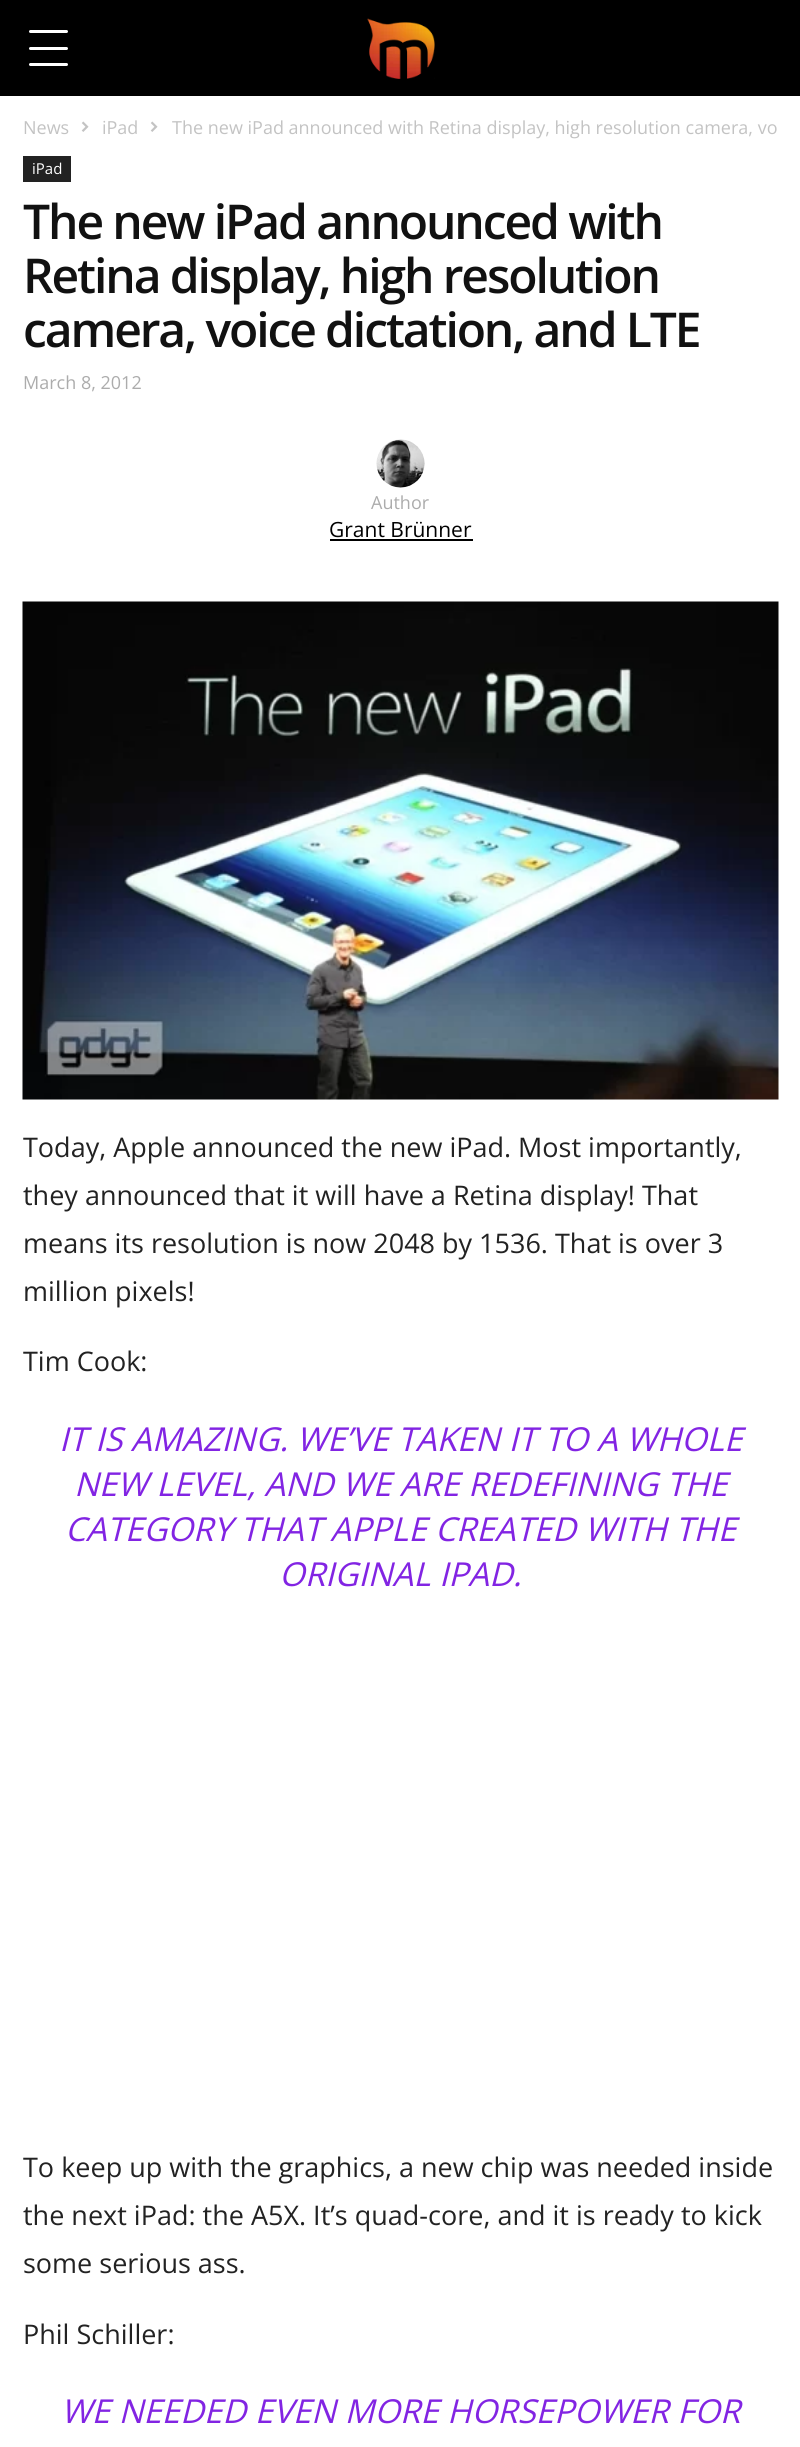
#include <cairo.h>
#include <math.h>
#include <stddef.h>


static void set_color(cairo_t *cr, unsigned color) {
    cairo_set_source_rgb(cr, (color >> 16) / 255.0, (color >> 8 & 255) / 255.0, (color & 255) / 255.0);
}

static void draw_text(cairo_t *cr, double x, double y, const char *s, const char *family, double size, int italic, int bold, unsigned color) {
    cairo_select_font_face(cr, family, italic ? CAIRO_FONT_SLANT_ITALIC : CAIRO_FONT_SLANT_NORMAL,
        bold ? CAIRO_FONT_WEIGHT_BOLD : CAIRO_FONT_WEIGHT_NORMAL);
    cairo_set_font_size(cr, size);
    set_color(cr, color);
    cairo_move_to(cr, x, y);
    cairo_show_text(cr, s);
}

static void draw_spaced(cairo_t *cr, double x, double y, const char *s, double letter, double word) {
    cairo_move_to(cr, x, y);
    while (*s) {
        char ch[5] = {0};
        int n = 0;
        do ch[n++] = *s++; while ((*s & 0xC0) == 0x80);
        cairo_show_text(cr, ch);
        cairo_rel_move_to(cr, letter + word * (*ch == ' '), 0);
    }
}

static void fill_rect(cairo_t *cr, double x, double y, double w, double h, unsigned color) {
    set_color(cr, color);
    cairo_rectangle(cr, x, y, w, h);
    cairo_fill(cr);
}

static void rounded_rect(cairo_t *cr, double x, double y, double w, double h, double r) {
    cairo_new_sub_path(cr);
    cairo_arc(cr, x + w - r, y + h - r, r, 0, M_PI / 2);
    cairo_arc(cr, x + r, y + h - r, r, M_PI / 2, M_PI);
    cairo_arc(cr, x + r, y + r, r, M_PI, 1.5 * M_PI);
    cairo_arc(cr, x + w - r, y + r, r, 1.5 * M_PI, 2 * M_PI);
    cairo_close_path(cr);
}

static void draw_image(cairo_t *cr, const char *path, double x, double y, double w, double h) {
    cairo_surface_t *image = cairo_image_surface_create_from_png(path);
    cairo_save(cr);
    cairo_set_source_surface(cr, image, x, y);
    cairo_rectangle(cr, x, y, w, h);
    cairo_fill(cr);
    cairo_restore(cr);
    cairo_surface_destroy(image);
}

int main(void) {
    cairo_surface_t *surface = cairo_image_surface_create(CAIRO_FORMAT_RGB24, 800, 2447);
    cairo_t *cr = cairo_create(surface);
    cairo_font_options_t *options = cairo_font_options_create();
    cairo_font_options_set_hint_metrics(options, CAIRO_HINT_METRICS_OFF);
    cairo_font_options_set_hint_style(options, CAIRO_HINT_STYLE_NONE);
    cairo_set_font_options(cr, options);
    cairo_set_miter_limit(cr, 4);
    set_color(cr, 0xFFFFFF);
    cairo_paint(cr);
    fill_rect(cr, 0, 0, 800, 96, 0x000000);
    set_color(cr, 0xFFFFFF);
    rounded_rect(cr, 29, 30, 39, 3, 1.5);
    cairo_fill(cr);
    rounded_rect(cr, 29, 47, 39, 3, 1.5);
    cairo_fill(cr);
    rounded_rect(cr, 29, 63, 39, 3, 1.5);
    cairo_fill(cr);
    draw_image(cr, "assets/img1.png", 367, 18, 68, 61);
    draw_text(cr, 23, 134, "News", "Open Sans", 18, 0, 0, 0xC3C3C3);
    draw_image(cr, "assets/img2.png", 81, 121, 8, 11);
    draw_text(cr, 102, 134, "iPad", "Open Sans", 18, 0, 0, 0xC3C3C3);
    draw_image(cr, "assets/img2.png", 150, 121, 8, 11);
    draw_text(cr, 172, 134, "The new iPad announced with Retina display, high resolution camera, vo", "Open Sans", 18, 0, 0, 0xC3C3C3);
    fill_rect(cr, 23, 156, 48, 26, 0x222222);
    draw_text(cr, 32, 174, "iPad", "Open Sans", 15, 0, 0, 0xFFFFFF);
    cairo_select_font_face(cr, "Open Sans SemiBold", CAIRO_FONT_SLANT_NORMAL, CAIRO_FONT_WEIGHT_NORMAL);
    cairo_set_font_size(cr, 48);
    set_color(cr, 0x111111);
    draw_spaced(cr, 23, 239, "The new iPad announced with", -2.1, 0);
    draw_spaced(cr, 23, 293, "Retina display, high resolution", -2.1, 0);
    draw_spaced(cr, 23, 347, "camera, voice dictation, and LTE", -2.1, 0);
    draw_text(cr, 23, 389, "March 8, 2012", "Open Sans", 18, 0, 0, 0xACACAC);
    draw_image(cr, "assets/img3.png", 376, 439, 49, 49);
    draw_text(cr, 371, 509, "Author", "Open Sans", 18, 0, 0, 0xACACAC);
    draw_text(cr, 329, 537, "Grant Brünner", "Open Sans", 21, 0, 0, 0x000000);
    fill_rect(cr, 330, 539, 143, 2, 0x000000);
    draw_image(cr, "assets/img4.png", 22, 601, 757, 499);
    draw_text(cr, 23, 1157, "Today, Apple announced the new iPad. Most importantly,", "Open Sans", 27, 0, 0, 0x222222);
    draw_text(cr, 23, 1205, "they announced that it will have a Retina display! That", "Open Sans", 27, 0, 0, 0x222222);
    draw_text(cr, 23, 1253, "means its resolution is now 2048 by 1536. That is over 3", "Open Sans", 27, 0, 0, 0x222222);
    draw_text(cr, 23, 1301, "million pixels!", "Open Sans", 27, 0, 0, 0x222222);
    draw_text(cr, 23, 1371, "Tim Cook:", "Open Sans", 27, 0, 0, 0x222222);
    draw_text(cr, 59, 1451, "IT IS AMAZING. WE’VE TAKEN IT TO A WHOLE", "Open Sans", 33, 1, 0, 0x8224E3);
    draw_text(cr, 74, 1496, "NEW LEVEL, AND WE ARE REDEFINING THE", "Open Sans", 33, 1, 0, 0x8224E3);
    draw_text(cr, 65, 1541, "CATEGORY THAT APPLE CREATED WITH THE", "Open Sans", 33, 1, 0, 0x8224E3);
    draw_text(cr, 279, 1586, "ORIGINAL IPAD.", "Open Sans", 33, 1, 0, 0x8224E3);
    draw_text(cr, 23, 2177, "To keep up with the graphics, a new chip was needed inside", "Open Sans", 27, 0, 0, 0x222222);
    draw_text(cr, 23, 2225, "the next iPad: the A5X. It’s quad-core, and it is ready to kick", "Open Sans", 27, 0, 0, 0x222222);
    draw_text(cr, 23, 2273, "some serious ass.", "Open Sans", 27, 0, 0, 0x222222);
    draw_text(cr, 23, 2344, "Phil Schiller:", "Open Sans", 27, 0, 0, 0x222222);
    draw_text(cr, 61, 2423, "WE NEEDED EVEN MORE HORSEPOWER FOR", "Open Sans", 33, 1, 0, 0x8224E3);
    cairo_surface_write_to_png(surface, "output.png");
    cairo_font_options_destroy(options);
    cairo_destroy(cr);
    cairo_surface_destroy(surface);
    return 0;
}
